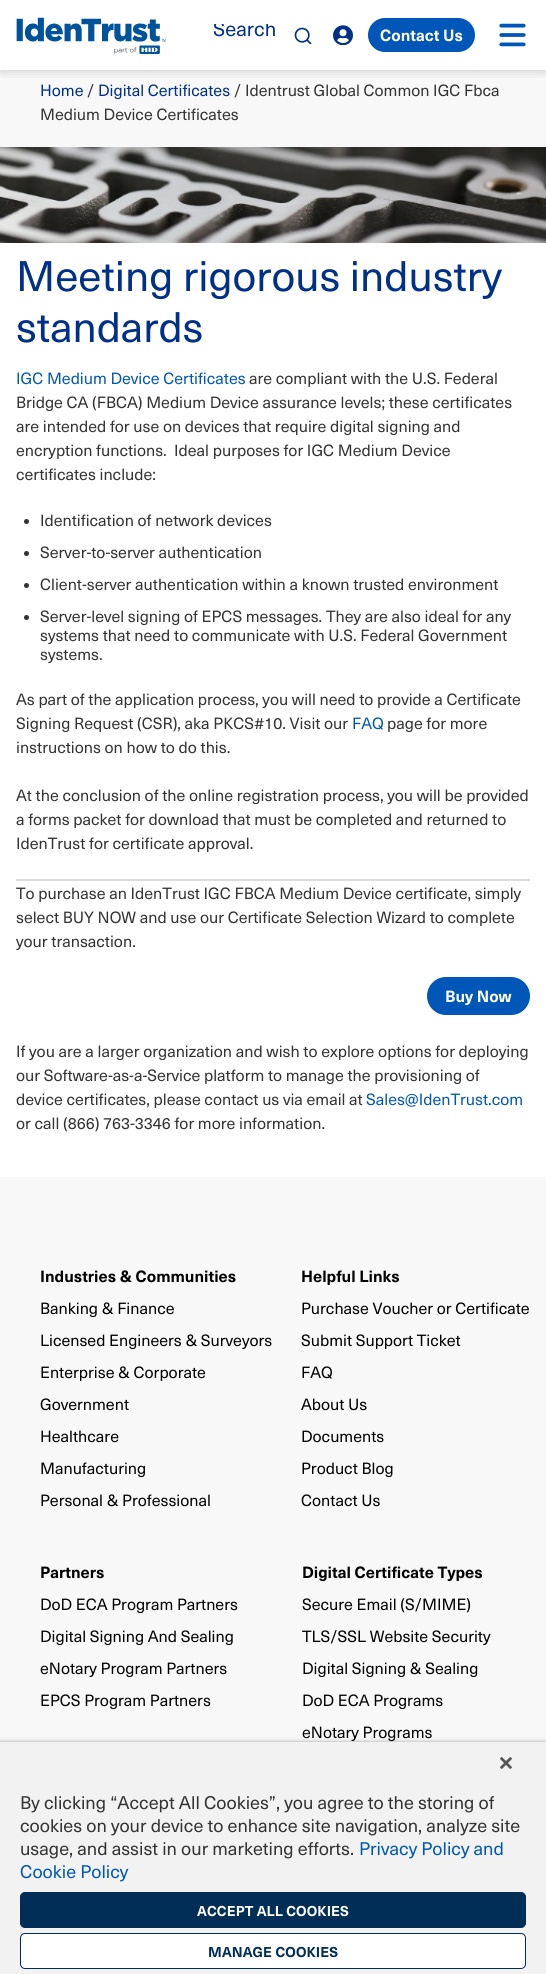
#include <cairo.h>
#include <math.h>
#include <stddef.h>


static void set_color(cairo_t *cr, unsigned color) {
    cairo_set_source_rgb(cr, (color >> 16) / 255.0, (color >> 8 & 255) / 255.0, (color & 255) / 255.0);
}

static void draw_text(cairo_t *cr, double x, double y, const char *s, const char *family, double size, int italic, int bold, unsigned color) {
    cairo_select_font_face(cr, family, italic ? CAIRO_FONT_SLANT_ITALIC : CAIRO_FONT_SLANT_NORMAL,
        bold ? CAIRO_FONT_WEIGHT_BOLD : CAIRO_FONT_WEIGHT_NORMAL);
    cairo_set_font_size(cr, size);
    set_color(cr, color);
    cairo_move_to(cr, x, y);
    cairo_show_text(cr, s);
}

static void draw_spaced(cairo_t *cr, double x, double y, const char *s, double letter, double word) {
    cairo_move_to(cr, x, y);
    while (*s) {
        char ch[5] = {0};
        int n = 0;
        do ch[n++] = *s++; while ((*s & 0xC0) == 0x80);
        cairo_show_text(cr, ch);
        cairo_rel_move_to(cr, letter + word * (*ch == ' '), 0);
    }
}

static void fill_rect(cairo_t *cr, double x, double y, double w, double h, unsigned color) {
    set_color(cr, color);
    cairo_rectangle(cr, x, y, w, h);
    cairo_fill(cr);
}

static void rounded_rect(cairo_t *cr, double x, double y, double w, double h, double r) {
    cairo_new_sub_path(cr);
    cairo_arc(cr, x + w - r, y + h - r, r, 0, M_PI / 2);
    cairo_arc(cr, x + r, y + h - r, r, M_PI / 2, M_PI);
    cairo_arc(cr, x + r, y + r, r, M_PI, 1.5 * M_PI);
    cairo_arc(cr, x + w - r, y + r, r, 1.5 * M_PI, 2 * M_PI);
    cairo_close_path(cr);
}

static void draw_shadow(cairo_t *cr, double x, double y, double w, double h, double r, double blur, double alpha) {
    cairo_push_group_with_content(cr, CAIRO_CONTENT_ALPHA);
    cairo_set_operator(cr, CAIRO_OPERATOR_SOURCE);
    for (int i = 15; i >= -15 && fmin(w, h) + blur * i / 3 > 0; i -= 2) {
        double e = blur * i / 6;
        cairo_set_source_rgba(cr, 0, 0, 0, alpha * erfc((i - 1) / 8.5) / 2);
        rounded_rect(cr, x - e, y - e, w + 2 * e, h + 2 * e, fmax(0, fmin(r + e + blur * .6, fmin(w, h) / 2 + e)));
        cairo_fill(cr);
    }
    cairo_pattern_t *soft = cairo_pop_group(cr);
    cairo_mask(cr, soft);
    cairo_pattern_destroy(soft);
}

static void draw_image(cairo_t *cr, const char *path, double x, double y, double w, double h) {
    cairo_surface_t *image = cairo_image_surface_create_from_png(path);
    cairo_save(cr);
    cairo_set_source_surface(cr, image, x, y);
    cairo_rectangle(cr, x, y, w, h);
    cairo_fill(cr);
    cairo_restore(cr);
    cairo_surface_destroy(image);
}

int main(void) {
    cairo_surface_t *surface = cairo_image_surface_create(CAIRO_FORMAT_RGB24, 546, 1974);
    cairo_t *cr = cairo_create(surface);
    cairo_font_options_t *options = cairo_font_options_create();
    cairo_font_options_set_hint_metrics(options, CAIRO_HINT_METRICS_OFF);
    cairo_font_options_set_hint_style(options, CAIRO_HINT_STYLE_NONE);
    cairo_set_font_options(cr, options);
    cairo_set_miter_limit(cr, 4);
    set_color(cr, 0xFFFFFF);
    cairo_paint(cr);
    fill_rect(cr, 0, 70, 546, 77, 0xF8F8F8);
    cairo_save(cr);
    cairo_rectangle(cr, 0, 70, 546, 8);
    cairo_clip(cr);
    set_color(cr, 0x333333);
    draw_shadow(cr, 0, 2, 546, 70, 0, 5, 0.2);
    cairo_restore(cr);
    draw_image(cr, "assets/img1.png", 16, 17, 150, 37);
    cairo_save(cr);
    cairo_rectangle(cr, 213, 24, 120, 24);
    cairo_clip(cr);
    draw_text(cr, 213, 36, "Search", "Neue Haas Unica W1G", 20, 0, 0, 0x003087);
    cairo_restore(cr);
    draw_image(cr, "assets/img2.png", 294, 27, 18, 17);
    draw_image(cr, "assets/img3.png", 333, 25, 20, 20);
    set_color(cr, 0x0057B7);
    rounded_rect(cr, 368, 18, 107, 34, 17);
    cairo_fill(cr);
    draw_text(cr, 380, 41, "Contact Us", "Neue Haas Unica W1G", 16, 0, 1, 0xFFFFFF);
    draw_image(cr, "assets/img4.png", 499, 23, 27, 24);
    draw_text(cr, 40, 96, "Home", "Neue Haas Unica W1G", 16, 0, 0, 0x003087);
    draw_text(cr, 87, 96, "/", "Neue Haas Unica W1G", 16, 0, 0, 0x333333);
    draw_text(cr, 98, 96, "Digital Certificates", "Neue Haas Unica W1G", 16, 0, 0, 0x003087);
    draw_text(cr, 234, 96, "/ Identrust Global Common IGC Fbca", "Neue Haas Unica W1G", 16, 0, 0, 0x333333);
    draw_text(cr, 40, 120, "Medium Device Certificates", "Neue Haas Unica W1G", 16, 0, 0, 0x333333);
    draw_image(cr, "assets/img5.png", 0, 147, 546, 96);
    draw_text(cr, 16, 291, "Meeting rigorous industry", "Neue Haas Unica W1G", 42, 0, 0, 0x003087);
    draw_text(cr, 16, 342, "standards", "Neue Haas Unica W1G", 42, 0, 0, 0x003087);
    draw_text(cr, 16, 384, "IGC Medium Device Certificates", "Neue Haas Unica W1G", 16, 0, 0, 0x0057B7);
    draw_text(cr, 249, 384, "are compliant with the U.S. Federal", "Neue Haas Unica W1G", 16, 0, 0, 0x333333);
    draw_text(cr, 16, 408, "Bridge CA (FBCA) Medium Device assurance levels; these certificates", "Neue Haas Unica W1G", 16, 0, 0, 0x333333);
    draw_text(cr, 16, 432, "are intended for use on devices that require digital signing and", "Neue Haas Unica W1G", 16, 0, 0, 0x333333);
    draw_text(cr, 16, 456, "encryption functions.  Ideal purposes for IGC Medium Device", "Neue Haas Unica W1G", 16, 0, 0, 0x333333);
    draw_text(cr, 16, 480, "certificates include:", "Neue Haas Unica W1G", 16, 0, 0, 0x333333);
    cairo_new_path(cr);
    cairo_arc(cr, 26.5, 521.5, 2.5, 0, 2 * M_PI);
    cairo_fill(cr);
    draw_text(cr, 40, 526, "Identification of network devices", "Neue Haas Unica W1G", 16, 0, 0, 0x333333);
    cairo_new_path(cr);
    cairo_arc(cr, 26.5, 553.5, 2.5, 0, 2 * M_PI);
    cairo_fill(cr);
    draw_text(cr, 40, 558, "Server-to-server authentication", "Neue Haas Unica W1G", 16, 0, 0, 0x333333);
    cairo_new_path(cr);
    cairo_arc(cr, 26.5, 585.5, 2.5, 0, 2 * M_PI);
    cairo_fill(cr);
    draw_text(cr, 40, 590, "Client-server authentication within a known trusted environment", "Neue Haas Unica W1G", 16, 0, 0, 0x333333);
    cairo_new_path(cr);
    cairo_arc(cr, 26.5, 617.5, 2.5, 0, 2 * M_PI);
    cairo_fill(cr);
    draw_text(cr, 40, 622, "Server-level signing of EPCS messages. They are also ideal for any", "Neue Haas Unica W1G", 16, 0, 0, 0x333333);
    draw_text(cr, 40, 641, "systems that need to communicate with U.S. Federal Government", "Neue Haas Unica W1G", 16, 0, 0, 0x333333);
    draw_text(cr, 40, 660, "systems.", "Neue Haas Unica W1G", 16, 0, 0, 0x333333);
    draw_text(cr, 16, 705, "As part of the application process, you will need to provide a Certificate", "Neue Haas Unica W1G", 16, 0, 0, 0x333333);
    draw_text(cr, 16, 729, "Signing Request (CSR), aka PKCS#10. Visit our", "Neue Haas Unica W1G", 16, 0, 0, 0x333333);
    draw_text(cr, 352, 729, "FAQ", "Neue Haas Unica W1G", 16, 0, 0, 0x0057B7);
    draw_text(cr, 387, 729, "page for more", "Neue Haas Unica W1G", 16, 0, 0, 0x333333);
    draw_text(cr, 16, 753, "instructions on how to do this.", "Neue Haas Unica W1G", 16, 0, 0, 0x333333);
    draw_text(cr, 16, 801, "At the conclusion of the online registration process, you will be provided", "Neue Haas Unica W1G", 16, 0, 0, 0x333333);
    draw_text(cr, 16, 825, "a forms packet for download that must be completed and returned to", "Neue Haas Unica W1G", 16, 0, 0, 0x333333);
    draw_text(cr, 16, 849, "IdenTrust for certificate approval.", "Neue Haas Unica W1G", 16, 0, 0, 0x333333);
    fill_rect(cr, 16, 879, 514, 2, 0xDDDDDD);
    draw_text(cr, 16, 899, "To purchase an IdenTrust IGC FBCA Medium Device certificate, simply", "Neue Haas Unica W1G", 16, 0, 0, 0x333333);
    draw_text(cr, 16, 923, "select BUY NOW and use our Certificate Selection Wizard to complete", "Neue Haas Unica W1G", 16, 0, 0, 0x333333);
    draw_text(cr, 16, 947, "your transaction.", "Neue Haas Unica W1G", 16, 0, 0, 0x333333);
    set_color(cr, 0x0057B7);
    rounded_rect(cr, 428, 978, 101, 36, 18);
    cairo_fill_preserve(cr);
    cairo_stroke(cr);
    draw_text(cr, 445, 1002, "Buy Now", "Neue Haas Unica W1G", 16, 0, 1, 0xFFFFFF);
    draw_text(cr, 16, 1057, "If you are a larger organization and wish to explore options for deploying", "Neue Haas Unica W1G", 16, 0, 0, 0x333333);
    draw_text(cr, 16, 1081, "our Software-as-a-Service platform to manage the provisioning of", "Neue Haas Unica W1G", 16, 0, 0, 0x333333);
    draw_text(cr, 16, 1105, "device certificates, please contact us via email at", "Neue Haas Unica W1G", 16, 0, 0, 0x333333);
    draw_text(cr, 366, 1105, "Sales@IdenTrust.com", "Neue Haas Unica W1G", 16, 0, 0, 0x0057B7);
    draw_text(cr, 16, 1129, "or call (866) 763-3346 for more information.", "Neue Haas Unica W1G", 16, 0, 0, 0x333333);
    fill_rect(cr, 0, 1177, 546, 565, 0xF8F8F8);
    draw_text(cr, 40, 1282, "Industries & Communities", "Neue Haas Unica W1G", 16, 0, 1, 0x000000);
    draw_text(cr, 40, 1314, "Banking & Finance", "Neue Haas Unica W1G", 16, 0, 0, 0x000000);
    draw_text(cr, 40, 1346, "Licensed Engineers & Surveyors", "Neue Haas Unica W1G", 16, 0, 0, 0x000000);
    draw_text(cr, 40, 1378, "Enterprise & Corporate", "Neue Haas Unica W1G", 16, 0, 0, 0x000000);
    draw_text(cr, 40, 1410, "Government", "Neue Haas Unica W1G", 16, 0, 0, 0x000000);
    draw_text(cr, 40, 1442, "Healthcare", "Neue Haas Unica W1G", 16, 0, 0, 0x000000);
    draw_text(cr, 40, 1474, "Manufacturing", "Neue Haas Unica W1G", 16, 0, 0, 0x000000);
    draw_text(cr, 40, 1506, "Personal & Professional", "Neue Haas Unica W1G", 16, 0, 0, 0x000000);
    draw_text(cr, 301, 1282, "Helpful Links", "Neue Haas Unica W1G", 16, 0, 1, 0x000000);
    draw_text(cr, 301, 1314, "Purchase Voucher or Certificate", "Neue Haas Unica W1G", 16, 0, 0, 0x000000);
    draw_text(cr, 301, 1346, "Submit Support Ticket", "Neue Haas Unica W1G", 16, 0, 0, 0x000000);
    draw_text(cr, 301, 1378, "FAQ", "Neue Haas Unica W1G", 16, 0, 0, 0x000000);
    draw_text(cr, 301, 1410, "About Us", "Neue Haas Unica W1G", 16, 0, 0, 0x000000);
    draw_text(cr, 301, 1442, "Documents", "Neue Haas Unica W1G", 16, 0, 0, 0x000000);
    draw_text(cr, 301, 1474, "Product Blog", "Neue Haas Unica W1G", 16, 0, 0, 0x000000);
    draw_text(cr, 301, 1506, "Contact Us", "Neue Haas Unica W1G", 16, 0, 0, 0x000000);
    draw_text(cr, 40, 1578, "Partners", "Neue Haas Unica W1G", 16, 0, 1, 0x000000);
    draw_text(cr, 40, 1610, "DoD ECA Program Partners", "Neue Haas Unica W1G", 16, 0, 0, 0x000000);
    draw_text(cr, 40, 1642, "Digital Signing And Sealing", "Neue Haas Unica W1G", 16, 0, 0, 0x000000);
    draw_text(cr, 40, 1674, "eNotary Program Partners", "Neue Haas Unica W1G", 16, 0, 0, 0x000000);
    draw_text(cr, 40, 1706, "EPCS Program Partners", "Neue Haas Unica W1G", 16, 0, 0, 0x000000);
    draw_text(cr, 302, 1578, "Digital Certificate Types", "Neue Haas Unica W1G", 16, 0, 1, 0x000000);
    draw_text(cr, 302, 1610, "Secure Email (S/MIME)", "Neue Haas Unica W1G", 16, 0, 0, 0x000000);
    draw_text(cr, 302, 1642, "TLS/SSL Website Security", "Neue Haas Unica W1G", 16, 0, 0, 0x000000);
    draw_text(cr, 302, 1674, "Digital Signing & Sealing", "Neue Haas Unica W1G", 16, 0, 0, 0x000000);
    draw_text(cr, 302, 1706, "DoD ECA Programs", "Neue Haas Unica W1G", 16, 0, 0, 0x000000);
    draw_text(cr, 302, 1738, "eNotary Programs", "Neue Haas Unica W1G", 16, 0, 0, 0x000000);
    set_color(cr, 0x000000);
    draw_shadow(cr, 0, 1742, 546, 232, 0, 2, 0.35);
    fill_rect(cr, 0, 1742, 546, 232, 0xF2F2F2);
    draw_image(cr, "assets/img6.png", 500, 1757, 12, 12);
    draw_text(cr, 20, 1809, "By clicking “Accept All Cookies”, you agree to the storing of", "Neue Haas Unica W1G", 18, 0, 0, 0x333333);
    draw_text(cr, 20, 1832, "cookies on your device to enhance site navigation, analyze site", "Neue Haas Unica W1G", 18, 0, 0, 0x333333);
    draw_text(cr, 20, 1855, "usage, and assist in our marketing efforts.", "Neue Haas Unica W1G", 18, 0, 0, 0x333333);
    draw_text(cr, 359, 1855, "Privacy Policy and", "Neue Haas Unica W1G", 18, 0, 0, 0x0057B7);
    draw_text(cr, 20, 1878, "Cookie Policy", "Neue Haas Unica W1G", 18, 0, 0, 0x0057B7);
    set_color(cr, 0x002E56);
    rounded_rect(cr, 20.5, 1892.5, 505, 35, 4.5);
    cairo_fill_preserve(cr);
    cairo_set_line_width(cr, 1);
    cairo_stroke(cr);
    cairo_select_font_face(cr, "Neue Haas Unica W1G", CAIRO_FONT_SLANT_NORMAL, CAIRO_FONT_WEIGHT_BOLD);
    cairo_set_font_size(cr, 14);
    set_color(cr, 0xFFFFFF);
    draw_spaced(cr, 197, 1916, "ACCEPT ALL COOKIES", 0.1, 0);
    rounded_rect(cr, 20.5, 1933.5, 505, 35, 4.5);
    cairo_fill_preserve(cr);
    set_color(cr, 0x002D56);
    cairo_stroke(cr);
    draw_spaced(cr, 208, 1957, "MANAGE COOKIES", 0.1, 0);
    cairo_surface_write_to_png(surface, "output.png");
    cairo_font_options_destroy(options);
    cairo_destroy(cr);
    cairo_surface_destroy(surface);
    return 0;
}
